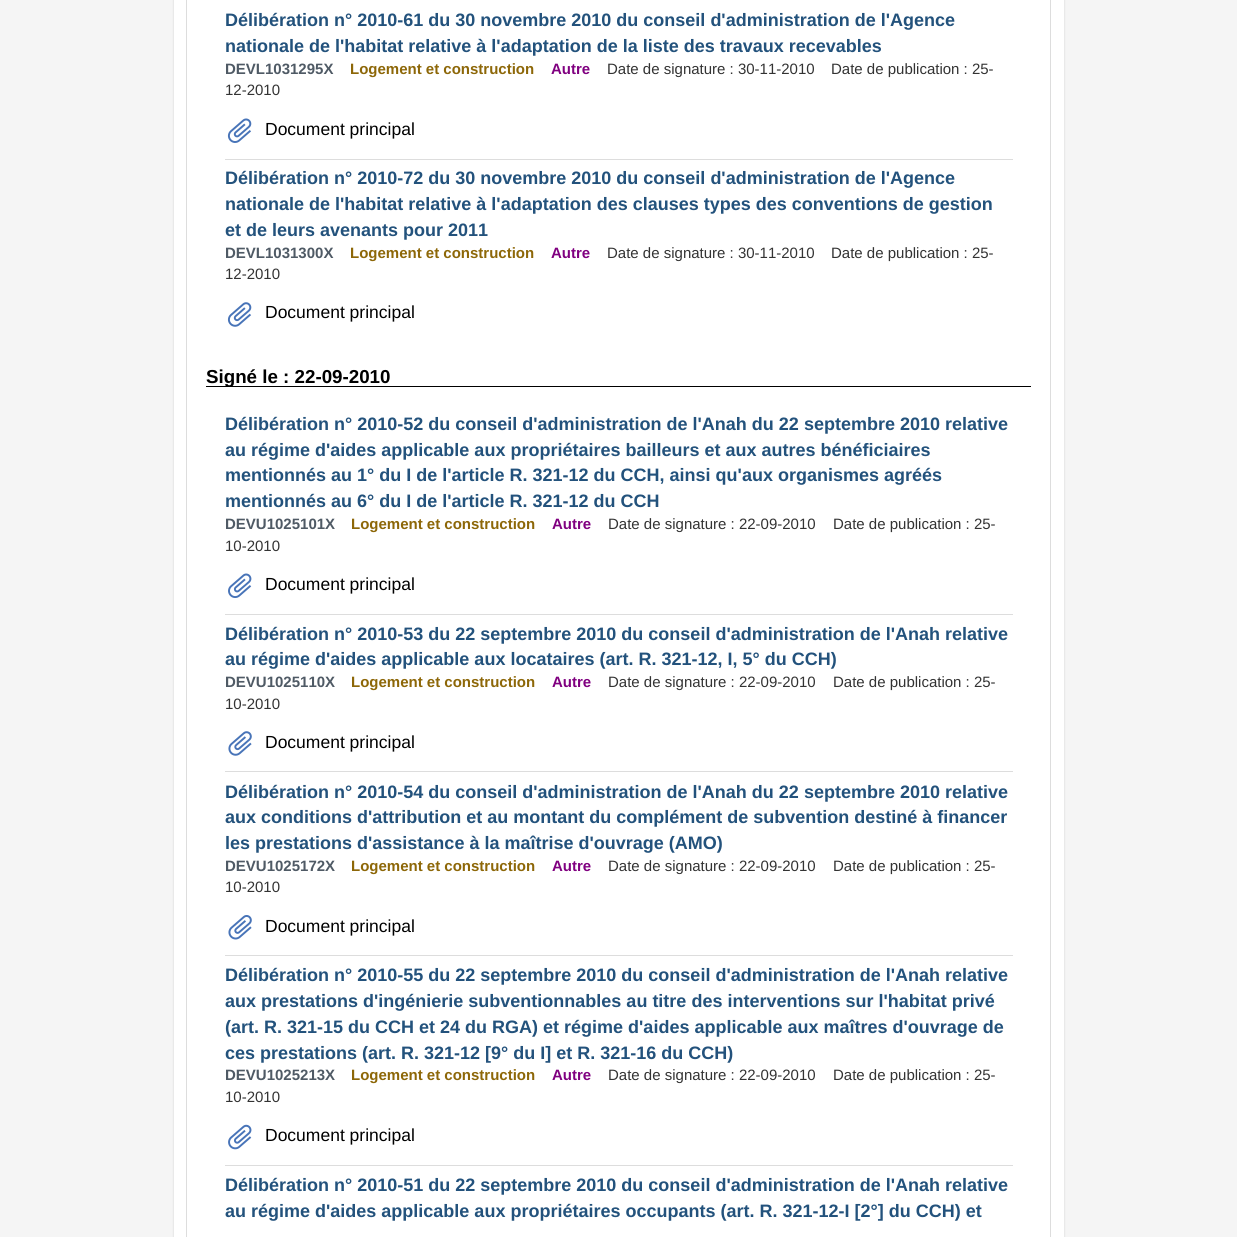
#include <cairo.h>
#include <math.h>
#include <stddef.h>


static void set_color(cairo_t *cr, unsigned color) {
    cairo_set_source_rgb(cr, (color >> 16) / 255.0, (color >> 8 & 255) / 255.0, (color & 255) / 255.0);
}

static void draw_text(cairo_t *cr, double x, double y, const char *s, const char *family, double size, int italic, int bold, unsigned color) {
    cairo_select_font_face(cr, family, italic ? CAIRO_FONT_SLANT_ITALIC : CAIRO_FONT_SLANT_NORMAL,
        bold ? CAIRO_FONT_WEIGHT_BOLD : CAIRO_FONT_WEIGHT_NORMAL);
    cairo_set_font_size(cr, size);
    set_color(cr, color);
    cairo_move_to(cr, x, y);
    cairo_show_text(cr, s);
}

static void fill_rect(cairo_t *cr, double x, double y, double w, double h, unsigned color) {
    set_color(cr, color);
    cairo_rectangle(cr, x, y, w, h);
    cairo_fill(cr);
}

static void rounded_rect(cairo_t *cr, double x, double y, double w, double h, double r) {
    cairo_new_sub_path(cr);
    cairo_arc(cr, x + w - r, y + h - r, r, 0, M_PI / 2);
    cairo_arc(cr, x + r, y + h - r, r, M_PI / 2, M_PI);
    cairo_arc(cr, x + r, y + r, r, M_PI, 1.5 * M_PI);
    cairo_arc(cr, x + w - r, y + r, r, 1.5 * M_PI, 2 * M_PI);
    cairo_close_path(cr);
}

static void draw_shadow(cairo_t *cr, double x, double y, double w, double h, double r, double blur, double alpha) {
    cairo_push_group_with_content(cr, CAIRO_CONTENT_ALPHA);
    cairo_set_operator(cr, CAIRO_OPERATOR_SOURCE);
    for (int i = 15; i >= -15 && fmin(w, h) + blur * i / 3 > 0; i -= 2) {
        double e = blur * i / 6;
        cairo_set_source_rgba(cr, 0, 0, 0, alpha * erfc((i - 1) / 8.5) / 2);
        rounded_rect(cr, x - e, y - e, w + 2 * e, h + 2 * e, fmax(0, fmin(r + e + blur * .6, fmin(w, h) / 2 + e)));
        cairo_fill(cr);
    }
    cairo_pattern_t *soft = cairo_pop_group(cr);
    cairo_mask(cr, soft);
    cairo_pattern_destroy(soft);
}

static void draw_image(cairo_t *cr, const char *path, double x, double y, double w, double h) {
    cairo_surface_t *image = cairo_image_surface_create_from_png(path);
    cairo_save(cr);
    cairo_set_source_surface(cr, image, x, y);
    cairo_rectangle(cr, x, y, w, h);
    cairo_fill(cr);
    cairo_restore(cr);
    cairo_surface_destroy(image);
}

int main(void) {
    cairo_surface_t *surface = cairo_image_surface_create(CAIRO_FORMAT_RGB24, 1237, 1237);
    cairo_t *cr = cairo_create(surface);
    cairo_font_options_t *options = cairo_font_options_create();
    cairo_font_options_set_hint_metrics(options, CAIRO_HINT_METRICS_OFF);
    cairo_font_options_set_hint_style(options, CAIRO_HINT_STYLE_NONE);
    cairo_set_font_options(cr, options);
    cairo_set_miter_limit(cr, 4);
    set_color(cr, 0xF5F5F5);
    cairo_paint(cr);
    set_color(cr, 0x000000);
    draw_shadow(cr, 174, -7, 890, 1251, 4, 1, 0.15);
    fill_rect(cr, 174, 0, 890, 1237, 0xFFFFFF);
    cairo_rectangle(cr, 186.5, -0.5, 864, 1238);
    set_color(cr, 0xDDDDDD);
    cairo_set_line_width(cr, 1);
    cairo_stroke(cr);
    draw_text(cr, 225, 26, "Délibération n° 2010-61 du 30 novembre 2010 du conseil d'administration de l'Agence", "Liberation Sans", 18, 0, 1, 0x23527C);
    draw_text(cr, 225, 52, "nationale de l'habitat relative à l'adaptation de la liste des travaux recevables", "Liberation Sans", 18, 0, 1, 0x23527C);
    draw_text(cr, 225, 74, "DEVL1031295X", "Liberation Sans", 15, 0, 1, 0x4F5A65);
    draw_text(cr, 350, 74, "Logement et construction", "Liberation Sans", 15, 0, 1, 0x8D6708);
    draw_text(cr, 551, 74, "Autre", "Liberation Sans", 15, 0, 1, 0x800080);
    draw_text(cr, 607, 74, "Date de signature : 30-11-2010", "Liberation Sans", 15, 0, 0, 0x333333);
    draw_text(cr, 831, 74, "Date de publication : 25-", "Liberation Sans", 15, 0, 0, 0x333333);
    draw_text(cr, 225, 95, "12-2010", "Liberation Sans", 15, 0, 0, 0x333333);
    draw_image(cr, "assets/img1.png", 227, 118, 25, 25);
    draw_text(cr, 265, 135, "Document principal", "Liberation Sans", 17.5, 0, 0, 0x000000);
    fill_rect(cr, 225, 159, 788, 1, 0xDDDDDD);
    draw_text(cr, 225, 184, "Délibération n° 2010-72 du 30 novembre 2010 du conseil d'administration de l'Agence", "Liberation Sans", 18, 0, 1, 0x23527C);
    draw_text(cr, 225, 210, "nationale de l'habitat relative à l'adaptation des clauses types des conventions de gestion", "Liberation Sans", 18, 0, 1, 0x23527C);
    draw_text(cr, 225, 236, "et de leurs avenants pour 2011", "Liberation Sans", 18, 0, 1, 0x23527C);
    draw_text(cr, 225, 258, "DEVL1031300X", "Liberation Sans", 15, 0, 1, 0x4F5A65);
    draw_text(cr, 350, 258, "Logement et construction", "Liberation Sans", 15, 0, 1, 0x8D6708);
    draw_text(cr, 551, 258, "Autre", "Liberation Sans", 15, 0, 1, 0x800080);
    draw_text(cr, 607, 258, "Date de signature : 30-11-2010", "Liberation Sans", 15, 0, 0, 0x333333);
    draw_text(cr, 831, 258, "Date de publication : 25-", "Liberation Sans", 15, 0, 0, 0x333333);
    draw_text(cr, 225, 279, "12-2010", "Liberation Sans", 15, 0, 0, 0x333333);
    draw_image(cr, "assets/img2.png", 227, 302, 25, 25);
    draw_text(cr, 265, 318, "Document principal", "Liberation Sans", 17.5, 0, 0, 0x000000);
    fill_rect(cr, 206, 386, 825, 1, 0x000000);
    draw_text(cr, 206, 383, "Signé le : 22-09-2010", "Liberation Sans", 18.75, 0, 1, 0x000000);
    draw_text(cr, 225, 430, "Délibération n° 2010-52 du conseil d'administration de l'Anah du 22 septembre 2010 relative", "Liberation Sans", 18, 0, 1, 0x23527C);
    draw_text(cr, 225, 456, "au régime d'aides applicable aux propriétaires bailleurs et aux autres bénéficiaires", "Liberation Sans", 18, 0, 1, 0x23527C);
    draw_text(cr, 225, 481, "mentionnés au 1° du I de l'article R. 321-12 du CCH, ainsi qu'aux organismes agréés", "Liberation Sans", 18, 0, 1, 0x23527C);
    draw_text(cr, 225, 507, "mentionnés au 6° du I de l'article R. 321-12 du CCH", "Liberation Sans", 18, 0, 1, 0x23527C);
    draw_text(cr, 225, 529, "DEVU1025101X", "Liberation Sans", 15, 0, 1, 0x4F5A65);
    draw_text(cr, 351, 529, "Logement et construction", "Liberation Sans", 15, 0, 1, 0x8D6708);
    draw_text(cr, 552, 529, "Autre", "Liberation Sans", 15, 0, 1, 0x800080);
    draw_text(cr, 608, 529, "Date de signature : 22-09-2010", "Liberation Sans", 15, 0, 0, 0x333333);
    draw_text(cr, 833, 529, "Date de publication : 25-", "Liberation Sans", 15, 0, 0, 0x333333);
    draw_text(cr, 225, 551, "10-2010", "Liberation Sans", 15, 0, 0, 0x333333);
    draw_image(cr, "assets/img3.png", 228, 573, 24, 25);
    draw_text(cr, 265, 590, "Document principal", "Liberation Sans", 17.5, 0, 0, 0x000000);
    fill_rect(cr, 225, 614, 788, 1, 0xDDDDDD);
    draw_text(cr, 225, 640, "Délibération n° 2010-53 du 22 septembre 2010 du conseil d'administration de l'Anah relative", "Liberation Sans", 18, 0, 1, 0x23527C);
    draw_text(cr, 225, 665, "au régime d'aides applicable aux locataires (art. R. 321-12, I, 5° du CCH)", "Liberation Sans", 18, 0, 1, 0x23527C);
    draw_text(cr, 225, 687, "DEVU1025110X", "Liberation Sans", 15, 0, 1, 0x4F5A65);
    draw_text(cr, 351, 687, "Logement et construction", "Liberation Sans", 15, 0, 1, 0x8D6708);
    draw_text(cr, 552, 687, "Autre", "Liberation Sans", 15, 0, 1, 0x800080);
    draw_text(cr, 608, 687, "Date de signature : 22-09-2010", "Liberation Sans", 15, 0, 0, 0x333333);
    draw_text(cr, 833, 687, "Date de publication : 25-", "Liberation Sans", 15, 0, 0, 0x333333);
    draw_text(cr, 225, 709, "10-2010", "Liberation Sans", 15, 0, 0, 0x333333);
    draw_image(cr, "assets/img4.png", 228, 731, 24, 25);
    draw_text(cr, 265, 748, "Document principal", "Liberation Sans", 17.5, 0, 0, 0x000000);
    fill_rect(cr, 225, 771, 788, 1, 0xDDDDDD);
    draw_text(cr, 225, 798, "Délibération n° 2010-54 du conseil d'administration de l'Anah du 22 septembre 2010 relative", "Liberation Sans", 18, 0, 1, 0x23527C);
    draw_text(cr, 225, 823, "aux conditions d'attribution et au montant du complément de subvention destiné à financer", "Liberation Sans", 18, 0, 1, 0x23527C);
    draw_text(cr, 225, 849, "les prestations d'assistance à la maîtrise d'ouvrage (AMO)", "Liberation Sans", 18, 0, 1, 0x23527C);
    draw_text(cr, 225, 871, "DEVU1025172X", "Liberation Sans", 15, 0, 1, 0x4F5A65);
    draw_text(cr, 351, 871, "Logement et construction", "Liberation Sans", 15, 0, 1, 0x8D6708);
    draw_text(cr, 552, 871, "Autre", "Liberation Sans", 15, 0, 1, 0x800080);
    draw_text(cr, 608, 871, "Date de signature : 22-09-2010", "Liberation Sans", 15, 0, 0, 0x333333);
    draw_text(cr, 833, 871, "Date de publication : 25-", "Liberation Sans", 15, 0, 0, 0x333333);
    draw_text(cr, 225, 892, "10-2010", "Liberation Sans", 15, 0, 0, 0x333333);
    draw_image(cr, "assets/img5.png", 228, 915, 24, 25);
    draw_text(cr, 265, 932, "Document principal", "Liberation Sans", 17.5, 0, 0, 0x000000);
    fill_rect(cr, 225, 955, 788, 1, 0xDDDDDD);
    draw_text(cr, 225, 981, "Délibération n° 2010-55 du 22 septembre 2010 du conseil d'administration de l'Anah relative", "Liberation Sans", 18, 0, 1, 0x23527C);
    draw_text(cr, 225, 1007, "aux prestations d'ingénierie subventionnables au titre des interventions sur l'habitat privé", "Liberation Sans", 18, 0, 1, 0x23527C);
    draw_text(cr, 225, 1033, "(art. R. 321-15 du CCH et 24 du RGA) et régime d'aides applicable aux maîtres d'ouvrage de", "Liberation Sans", 18, 0, 1, 0x23527C);
    draw_text(cr, 225, 1059, "ces prestations (art. R. 321-12 [9° du I] et R. 321-16 du CCH)", "Liberation Sans", 18, 0, 1, 0x23527C);
    draw_text(cr, 225, 1080, "DEVU1025213X", "Liberation Sans", 15, 0, 1, 0x4F5A65);
    draw_text(cr, 351, 1080, "Logement et construction", "Liberation Sans", 15, 0, 1, 0x8D6708);
    draw_text(cr, 552, 1080, "Autre", "Liberation Sans", 15, 0, 1, 0x800080);
    draw_text(cr, 608, 1080, "Date de signature : 22-09-2010", "Liberation Sans", 15, 0, 0, 0x333333);
    draw_text(cr, 833, 1080, "Date de publication : 25-", "Liberation Sans", 15, 0, 0, 0x333333);
    draw_text(cr, 225, 1102, "10-2010", "Liberation Sans", 15, 0, 0, 0x333333);
    draw_image(cr, "assets/img6.png", 228, 1124, 24, 26);
    draw_text(cr, 265, 1141, "Document principal", "Liberation Sans", 17.5, 0, 0, 0x000000);
    fill_rect(cr, 225, 1165, 788, 1, 0xDDDDDD);
    draw_text(cr, 225, 1191, "Délibération n° 2010-51 du 22 septembre 2010 du conseil d'administration de l'Anah relative", "Liberation Sans", 18, 0, 1, 0x23527C);
    draw_text(cr, 225, 1217, "au régime d'aides applicable aux propriétaires occupants (art. R. 321-12-I [2°] du CCH) et", "Liberation Sans", 18, 0, 1, 0x23527C);
    cairo_surface_write_to_png(surface, "output.png");
    cairo_font_options_destroy(options);
    cairo_destroy(cr);
    cairo_surface_destroy(surface);
    return 0;
}
